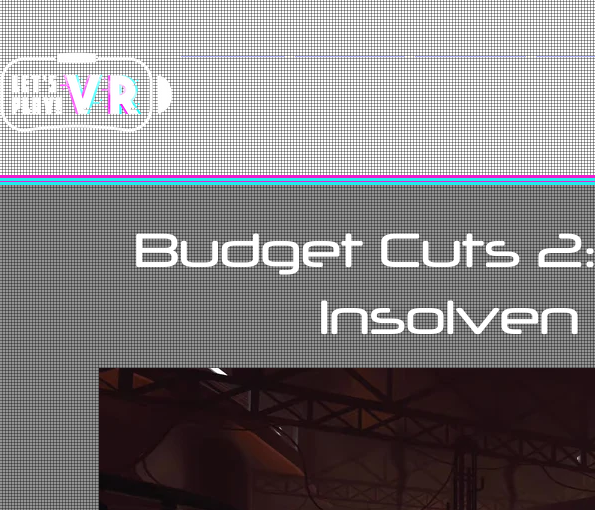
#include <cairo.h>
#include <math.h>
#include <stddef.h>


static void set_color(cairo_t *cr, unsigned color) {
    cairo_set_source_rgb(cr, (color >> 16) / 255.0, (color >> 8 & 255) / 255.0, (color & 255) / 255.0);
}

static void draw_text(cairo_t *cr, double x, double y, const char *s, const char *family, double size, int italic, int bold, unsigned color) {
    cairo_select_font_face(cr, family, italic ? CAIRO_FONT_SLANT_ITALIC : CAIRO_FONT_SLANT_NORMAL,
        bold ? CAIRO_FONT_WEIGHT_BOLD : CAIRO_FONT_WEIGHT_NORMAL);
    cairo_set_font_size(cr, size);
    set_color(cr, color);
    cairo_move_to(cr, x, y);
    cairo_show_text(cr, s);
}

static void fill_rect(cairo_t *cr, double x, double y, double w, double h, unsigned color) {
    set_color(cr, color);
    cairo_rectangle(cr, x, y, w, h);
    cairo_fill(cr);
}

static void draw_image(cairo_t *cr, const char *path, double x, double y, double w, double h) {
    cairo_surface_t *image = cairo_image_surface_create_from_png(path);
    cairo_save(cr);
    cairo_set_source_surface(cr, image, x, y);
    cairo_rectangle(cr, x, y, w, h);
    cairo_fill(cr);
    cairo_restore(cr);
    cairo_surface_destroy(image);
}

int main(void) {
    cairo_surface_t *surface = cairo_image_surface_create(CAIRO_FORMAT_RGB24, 595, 510);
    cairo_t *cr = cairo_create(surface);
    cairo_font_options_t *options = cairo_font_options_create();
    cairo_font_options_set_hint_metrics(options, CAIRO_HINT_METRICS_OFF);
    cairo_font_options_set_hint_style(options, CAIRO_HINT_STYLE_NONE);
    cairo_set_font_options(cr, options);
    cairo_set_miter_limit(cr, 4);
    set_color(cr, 0xFFFFFF);
    cairo_paint(cr);
    draw_image(cr, "assets/img1.png", 0, 0, 595, 510);
    draw_image(cr, "assets/img2.png", 0, 52, 173, 80);
    fill_rect(cr, 0, 175, 595, 3, 0xED1FCE);
    fill_rect(cr, 0, 178, 595, 7, 0x1FEDED);
    fill_rect(cr, 0, 181, 595, 1, 0xED1FCE);
    fill_rect(cr, 181, 56, 104, 1, 0xAEB2F7);
    fill_rect(cr, 295, 56, 110, 1, 0xAEB2F7);
    fill_rect(cr, 415, 56, 111, 1, 0xAEB2F7);
    fill_rect(cr, 536, 56, 59, 1, 0xAEB2F7);
    cairo_set_source_rgba(cr, 0, 0, 0, 0.42);
    cairo_rectangle(cr, 0, 185, 595, 325);
    cairo_fill(cr);
    draw_text(cr, 134, 267, "Budget Cuts 2:", "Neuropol", 46, 0, 0, 0xFFFFFF);
    draw_text(cr, 319, 334, "Insolven", "Neuropol", 46, 0, 0, 0xFFFFFF);
    draw_image(cr, "assets/img3.png", 99, 368, 496, 142);
    cairo_surface_write_to_png(surface, "output.png");
    cairo_font_options_destroy(options);
    cairo_destroy(cr);
    cairo_surface_destroy(surface);
    return 0;
}
